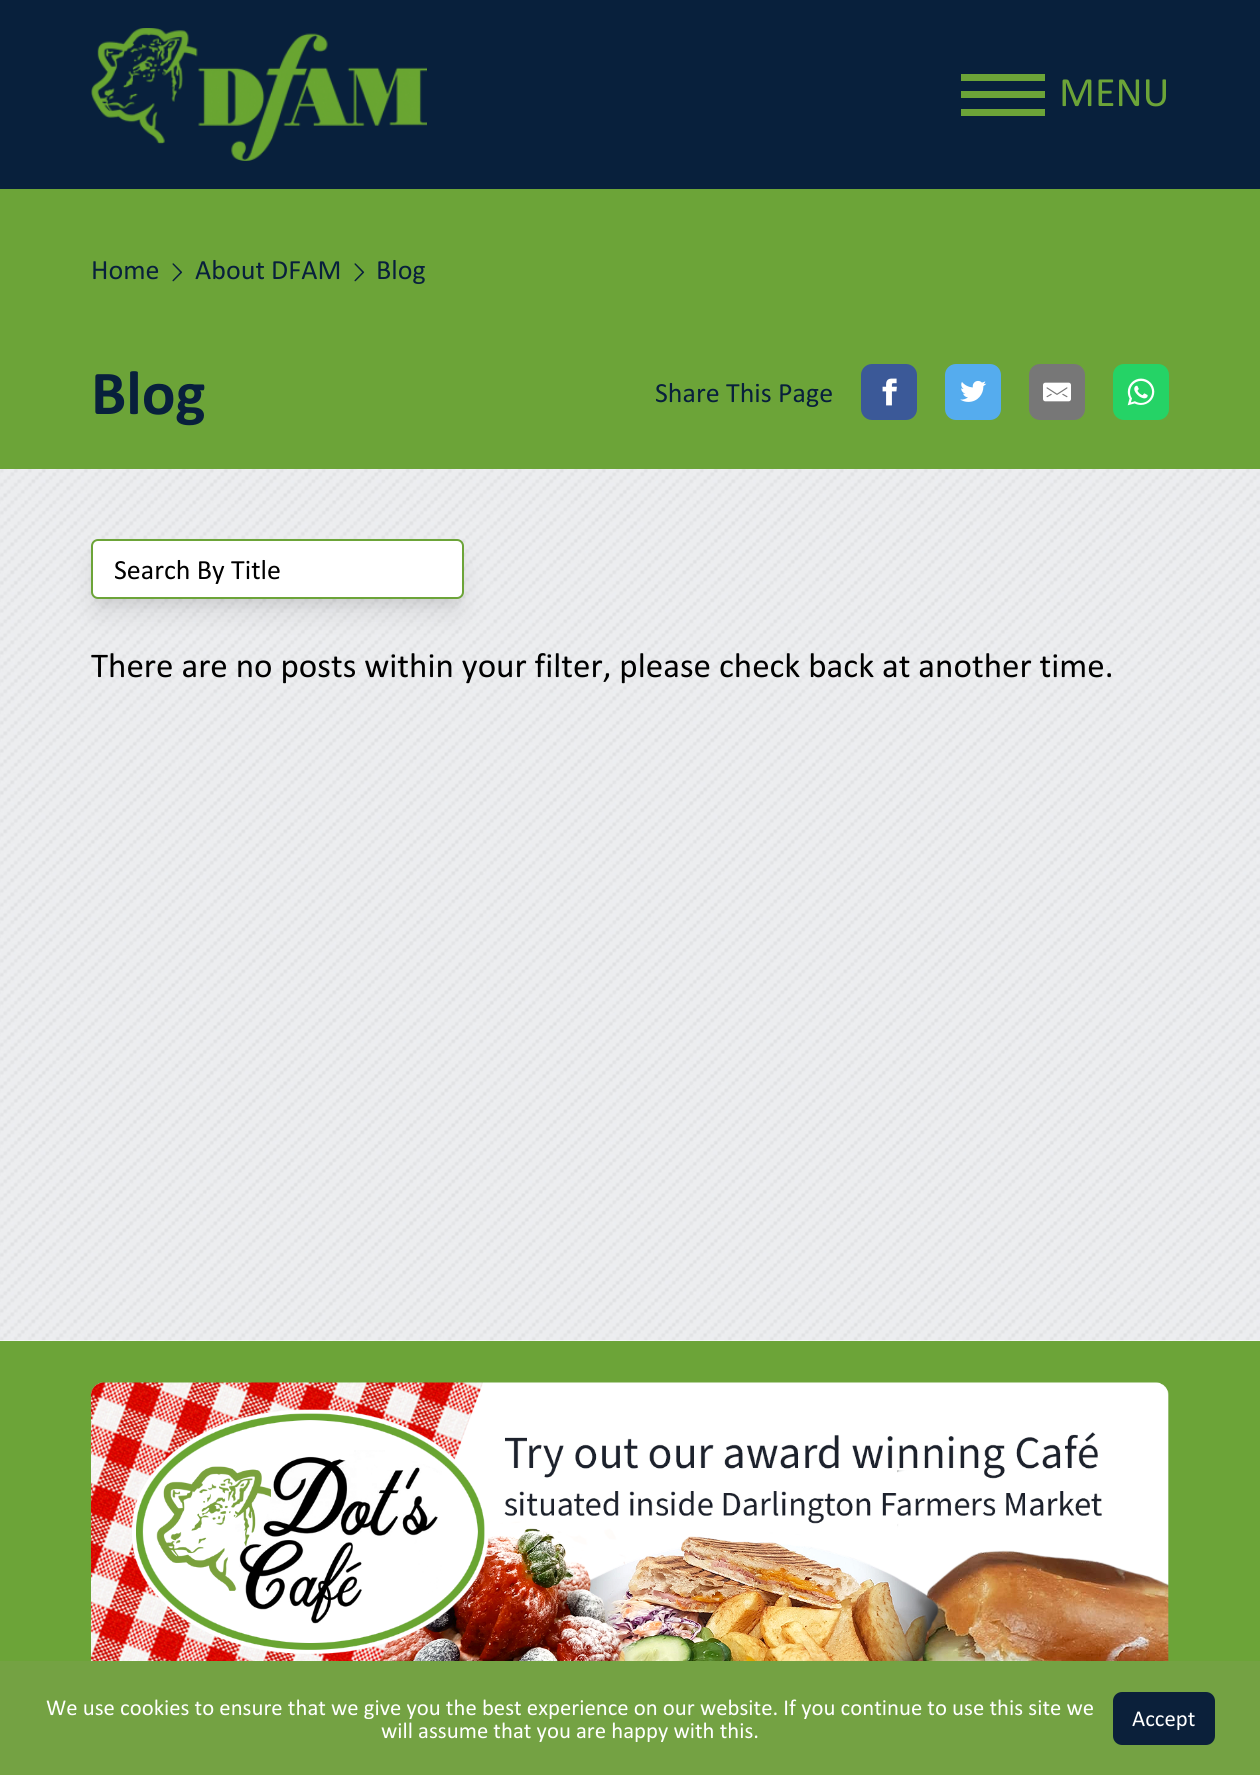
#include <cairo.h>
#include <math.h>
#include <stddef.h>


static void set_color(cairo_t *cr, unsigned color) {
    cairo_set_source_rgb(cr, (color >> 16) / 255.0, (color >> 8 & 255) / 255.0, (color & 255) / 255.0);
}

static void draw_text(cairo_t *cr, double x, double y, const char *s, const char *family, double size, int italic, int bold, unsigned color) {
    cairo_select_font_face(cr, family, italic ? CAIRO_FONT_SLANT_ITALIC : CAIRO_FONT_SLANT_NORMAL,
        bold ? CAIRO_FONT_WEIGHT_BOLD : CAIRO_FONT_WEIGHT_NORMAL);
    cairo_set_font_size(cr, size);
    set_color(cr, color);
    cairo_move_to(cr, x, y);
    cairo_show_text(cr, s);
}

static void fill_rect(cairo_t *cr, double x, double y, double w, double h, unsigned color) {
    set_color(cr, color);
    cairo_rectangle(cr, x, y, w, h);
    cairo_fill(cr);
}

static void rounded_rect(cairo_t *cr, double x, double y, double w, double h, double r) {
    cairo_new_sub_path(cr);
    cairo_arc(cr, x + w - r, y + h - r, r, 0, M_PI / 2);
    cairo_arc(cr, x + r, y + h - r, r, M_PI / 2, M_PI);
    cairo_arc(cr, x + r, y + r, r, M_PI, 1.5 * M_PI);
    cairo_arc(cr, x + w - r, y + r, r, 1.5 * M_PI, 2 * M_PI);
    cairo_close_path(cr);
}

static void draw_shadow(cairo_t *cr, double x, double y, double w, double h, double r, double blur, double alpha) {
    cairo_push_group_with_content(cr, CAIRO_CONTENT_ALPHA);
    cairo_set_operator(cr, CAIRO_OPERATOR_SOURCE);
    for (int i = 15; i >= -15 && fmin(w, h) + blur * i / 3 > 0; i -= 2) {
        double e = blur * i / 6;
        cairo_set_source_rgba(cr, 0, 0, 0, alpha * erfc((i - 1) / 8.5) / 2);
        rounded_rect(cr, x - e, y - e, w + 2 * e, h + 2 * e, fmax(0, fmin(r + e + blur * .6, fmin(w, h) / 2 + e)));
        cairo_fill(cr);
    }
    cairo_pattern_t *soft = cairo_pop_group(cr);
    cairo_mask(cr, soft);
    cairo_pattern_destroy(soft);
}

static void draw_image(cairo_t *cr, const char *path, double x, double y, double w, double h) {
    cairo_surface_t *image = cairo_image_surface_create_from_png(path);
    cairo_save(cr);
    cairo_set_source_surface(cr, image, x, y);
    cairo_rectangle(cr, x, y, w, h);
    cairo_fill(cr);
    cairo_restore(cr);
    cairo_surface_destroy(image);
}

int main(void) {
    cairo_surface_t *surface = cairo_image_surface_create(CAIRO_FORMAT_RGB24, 1260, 1775);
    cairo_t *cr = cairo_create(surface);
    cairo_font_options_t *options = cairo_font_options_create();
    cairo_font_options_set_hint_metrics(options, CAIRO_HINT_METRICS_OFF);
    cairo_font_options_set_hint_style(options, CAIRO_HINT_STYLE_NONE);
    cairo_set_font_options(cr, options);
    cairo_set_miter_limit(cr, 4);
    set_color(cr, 0xFFFFFF);
    cairo_paint(cr);
    fill_rect(cr, 0, 0, 1260, 189, 0x08203C);
    fill_rect(cr, 0, 189, 1260, 280, 0x6CA438);
    draw_image(cr, "assets/img1.png", 91, 28, 336, 133);
    fill_rect(cr, 961, 74, 84, 7, 0x6CA438);
    fill_rect(cr, 961, 91, 84, 7, 0x6CA438);
    fill_rect(cr, 961, 109, 84, 7, 0x6CA438);
    draw_text(cr, 1059, 106, "MENU", "Calibri", 42, 0, 0, 0x6CA438);
    draw_text(cr, 91, 279, "Home", "Calibri", 28, 0, 0, 0x08203C);
    draw_image(cr, "assets/img2.png", 172, 263, 11, 19);
    draw_text(cr, 195, 279, "About DFAM", "Calibri", 28, 0, 0, 0x08203C);
    draw_image(cr, "assets/img2.png", 354, 263, 11, 19);
    draw_text(cr, 376, 279, "Blog", "Calibri", 28, 0, 0, 0x08203C);
    draw_text(cr, 91, 414, "Blog", "Calibri", 63, 0, 1, 0x08203C);
    draw_text(cr, 655, 402, "Share This Page", "Calibri", 28, 0, 0, 0x08203C);
    set_color(cr, 0x3B5998);
    rounded_rect(cr, 861, 364, 56, 56, 11);
    cairo_fill(cr);
    draw_image(cr, "assets/img3.png", 882, 378, 15, 28);
    set_color(cr, 0x55ACEE);
    rounded_rect(cr, 945, 364, 56, 56, 11);
    cairo_fill(cr);
    draw_image(cr, "assets/img4.png", 960, 380, 27, 22);
    set_color(cr, 0x777777);
    rounded_rect(cr, 1029, 364, 56, 56, 11);
    cairo_fill(cr);
    draw_image(cr, "assets/img5.png", 1043, 382, 28, 20);
    set_color(cr, 0x25D366);
    rounded_rect(cr, 1113, 364, 56, 56, 11);
    cairo_fill(cr);
    draw_image(cr, "assets/img6.png", 1127, 378, 28, 28);
    draw_image(cr, "assets/img7.png", 0, 469, 1260, 872);
    set_color(cr, 0x000000);
    draw_shadow(cr, 95, 550, 365, 52, 4, 5, 0.05);
    draw_shadow(cr, 96, 562, 363, 49, 2, 13, 0.1);
    set_color(cr, 0xFFFFFF);
    rounded_rect(cr, 92, 540, 371, 58, 6);
    cairo_fill_preserve(cr);
    set_color(cr, 0x6CA438);
    cairo_stroke(cr);
    draw_text(cr, 114, 579, "Search By Title", "Calibri", 28, 0, 0, 0x000000);
    draw_text(cr, 91, 677, "There are no posts within your filter, please check back at another time.", "Calibri", 35, 0, 0, 0x000000);
    fill_rect(cr, 0, 1341, 1260, 320, 0x6CA438);
    draw_image(cr, "assets/img8.png", 91, 1382, 1078, 279);
    fill_rect(cr, 0, 1661, 1260, 114, 0x74A243);
    draw_text(cr, 46, 1715, "We use cookies to ensure that we give you the best experience on our website. If you continue to use this site we", "Calibri", 22.75, 0, 0, 0xFFFFFF);
    draw_text(cr, 381, 1738, "will assume that you are happy with this.", "Calibri", 22.75, 0, 0, 0xFFFFFF);
    set_color(cr, 0x0B203A);
    rounded_rect(cr, 1114, 1693, 100, 51, 8);
    cairo_fill_preserve(cr);
    cairo_stroke(cr);
    draw_text(cr, 1132, 1726, "Accept", "Calibri", 22.75, 0, 0, 0xFFFFFF);
    cairo_surface_write_to_png(surface, "output.png");
    cairo_font_options_destroy(options);
    cairo_destroy(cr);
    cairo_surface_destroy(surface);
    return 0;
}
